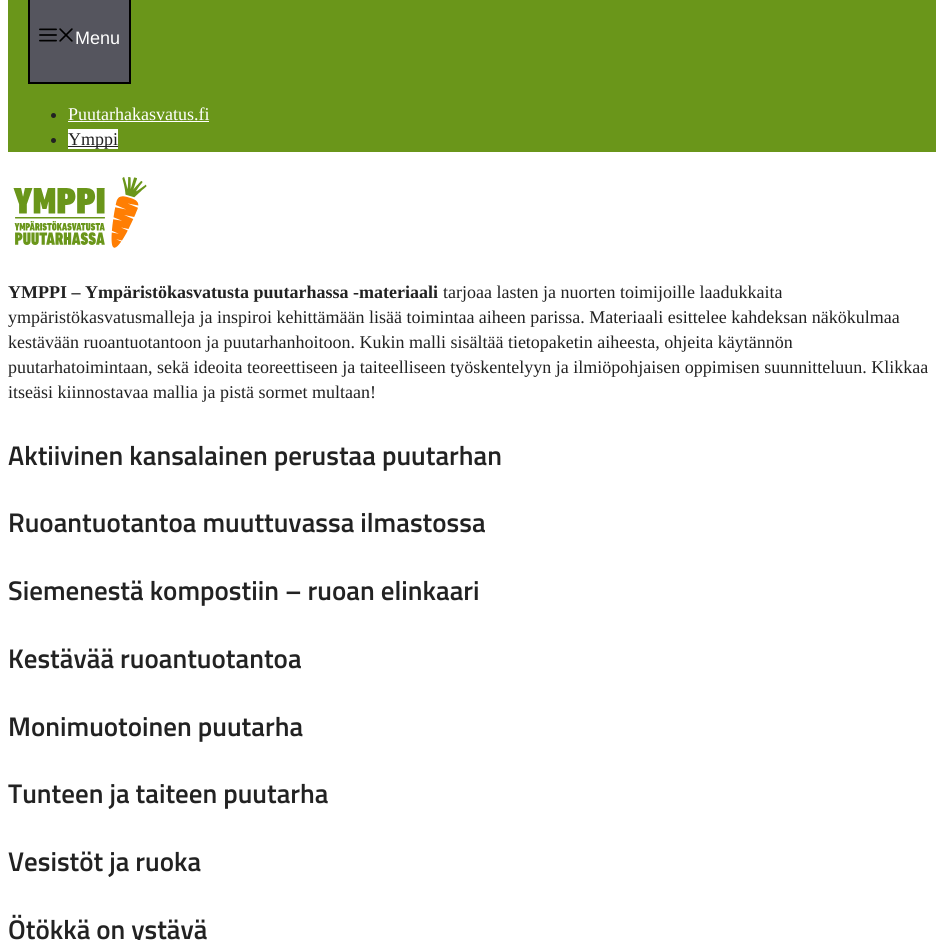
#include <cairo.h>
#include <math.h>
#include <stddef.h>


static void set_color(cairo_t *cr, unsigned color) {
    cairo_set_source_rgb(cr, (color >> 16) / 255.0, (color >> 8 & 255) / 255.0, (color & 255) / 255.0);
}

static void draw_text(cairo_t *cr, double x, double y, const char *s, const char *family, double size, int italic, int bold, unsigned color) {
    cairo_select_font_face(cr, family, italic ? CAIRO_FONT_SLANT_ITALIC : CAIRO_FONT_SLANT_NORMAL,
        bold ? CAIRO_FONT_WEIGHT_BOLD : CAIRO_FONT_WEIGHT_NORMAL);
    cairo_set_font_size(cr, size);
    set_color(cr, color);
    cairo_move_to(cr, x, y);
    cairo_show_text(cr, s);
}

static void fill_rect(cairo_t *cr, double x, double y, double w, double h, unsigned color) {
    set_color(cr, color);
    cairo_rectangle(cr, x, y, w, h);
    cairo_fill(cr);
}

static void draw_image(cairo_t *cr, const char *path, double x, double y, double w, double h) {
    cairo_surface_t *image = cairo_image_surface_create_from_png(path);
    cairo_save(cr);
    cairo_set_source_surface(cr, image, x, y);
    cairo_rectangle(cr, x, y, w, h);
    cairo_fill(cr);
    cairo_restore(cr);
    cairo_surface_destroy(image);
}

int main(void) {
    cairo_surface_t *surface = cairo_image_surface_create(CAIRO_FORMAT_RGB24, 944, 940);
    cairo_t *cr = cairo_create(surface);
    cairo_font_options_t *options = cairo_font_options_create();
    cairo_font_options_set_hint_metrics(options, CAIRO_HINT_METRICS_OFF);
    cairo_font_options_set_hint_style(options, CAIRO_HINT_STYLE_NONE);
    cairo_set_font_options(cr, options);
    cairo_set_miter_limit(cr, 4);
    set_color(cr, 0xFFFFFF);
    cairo_paint(cr);
    fill_rect(cr, 8, 0, 928, 152, 0x6A961A);
    set_color(cr, 0x55555E);
    cairo_rectangle(cr, 29, -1, 101, 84);
    cairo_fill_preserve(cr);
    set_color(cr, 0x000000);
    cairo_stroke(cr);
    draw_image(cr, "assets/img1.png", 39, 28, 18, 14);
    draw_image(cr, "assets/img2.png", 59, 28, 14, 14);
    draw_text(cr, 75, 44, "Menu", "Liberation Sans", 18, 0, 0, 0xFFFFFF);
    set_color(cr, 0x222222);
    cairo_new_path(cr);
    cairo_arc(cr, 53.5, 115.5, 2.5, 0, 2 * M_PI);
    cairo_fill(cr);
    draw_text(cr, 68, 120, "Puutarhakasvatus.fi", "Liberation Serif", 18, 0, 0, 0xFFFFFF);
    fill_rect(cr, 68, 121, 141, 1, 0xFFFFFF);
    set_color(cr, 0x222222);
    cairo_new_path(cr);
    cairo_arc(cr, 53.5, 140.5, 2.5, 0, 2 * M_PI);
    cairo_fill(cr);
    fill_rect(cr, 68, 129, 50, 20, 0xFFFFFF);
    fill_rect(cr, 68, 146, 50, 1, 0x222222);
    draw_text(cr, 68, 145, "Ymppi", "Liberation Serif", 18, 0, 0, 0x222222);
    draw_image(cr, "assets/img3.png", 13, 177, 134, 71);
    draw_text(cr, 8, 298, "YMPPI – Ympäristökasvatusta puutarhassa -materiaali", "Liberation Serif", 18, 0, 1, 0x222222);
    draw_text(cr, 443, 298, "tarjoaa lasten ja nuorten toimijoille laadukkaita", "Liberation Serif", 18, 0, 0, 0x222222);
    draw_text(cr, 8, 323, "ympäristökasvatusmalleja ja inspiroi kehittämään lisää toimintaa aiheen parissa. Materiaali esittelee kahdeksan näkökulmaa", "Liberation Serif", 18, 0, 0, 0x222222);
    draw_text(cr, 8, 348, "kestävään ruoantuotantoon ja puutarhanhoitoon. Kukin malli sisältää tietopaketin aiheesta, ohjeita käytännön", "Liberation Serif", 18, 0, 0, 0x222222);
    draw_text(cr, 8, 373, "puutarhatoimintaan, sekä ideoita teoreettiseen ja taiteelliseen työskentelyyn ja ilmiöpohjaisen oppimisen suunnitteluun. Klikkaa", "Liberation Serif", 18, 0, 0, 0x222222);
    draw_text(cr, 8, 398, "itseäsi kiinnostavaa mallia ja pistä sormet multaan!", "Liberation Serif", 18, 0, 0, 0x222222);
    draw_text(cr, 8, 465, "Aktiivinen kansalainen perustaa puutarhan", "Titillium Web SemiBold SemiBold", 27, 0, 0, 0x222222);
    draw_text(cr, 8, 532, "Ruoantuotantoa muuttuvassa ilmastossa", "Titillium Web SemiBold SemiBold", 27, 0, 0, 0x222222);
    draw_text(cr, 8, 600, "Siemenestä kompostiin – ruoan elinkaari", "Titillium Web SemiBold SemiBold", 27, 0, 0, 0x222222);
    draw_text(cr, 8, 668, "Kestävää ruoantuotantoa", "Titillium Web SemiBold SemiBold", 27, 0, 0, 0x222222);
    draw_text(cr, 8, 736, "Monimuotoinen puutarha", "Titillium Web SemiBold SemiBold", 27, 0, 0, 0x222222);
    draw_text(cr, 8, 803, "Tunteen ja taiteen puutarha", "Titillium Web SemiBold SemiBold", 27, 0, 0, 0x222222);
    draw_text(cr, 8, 871, "Vesistöt ja ruoka", "Titillium Web SemiBold SemiBold", 27, 0, 0, 0x222222);
    draw_text(cr, 8, 939, "Ötökkä on ystävä", "Titillium Web SemiBold SemiBold", 27, 0, 0, 0x222222);
    cairo_surface_write_to_png(surface, "output.png");
    cairo_font_options_destroy(options);
    cairo_destroy(cr);
    cairo_surface_destroy(surface);
    return 0;
}
